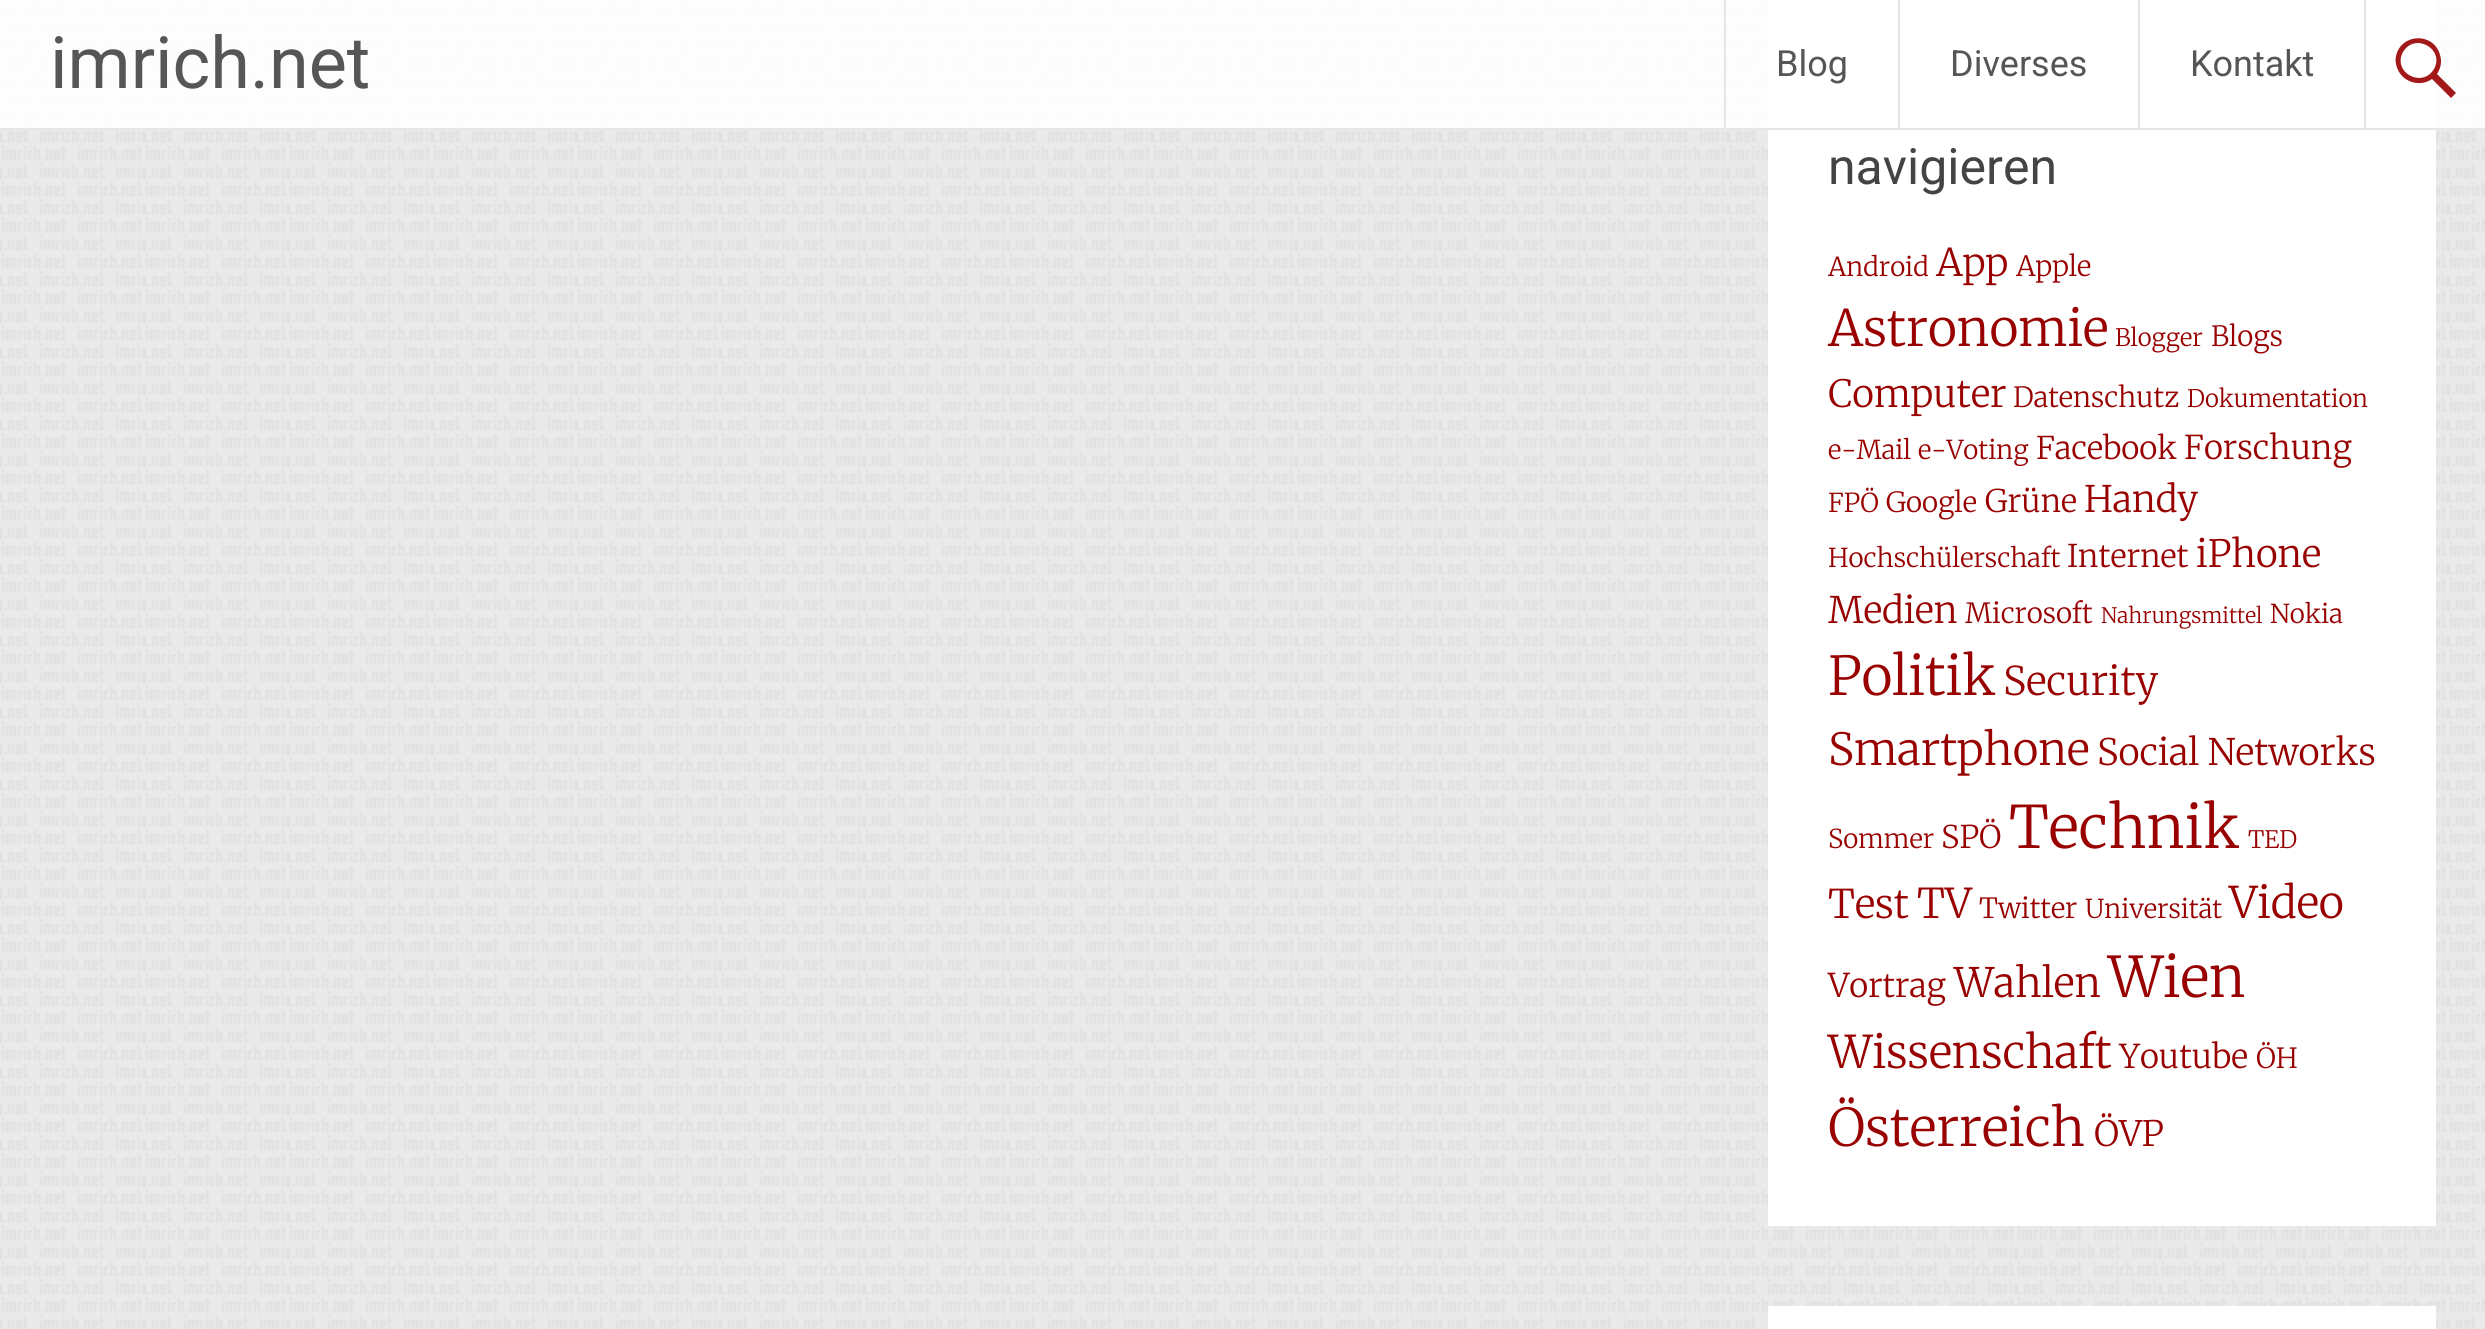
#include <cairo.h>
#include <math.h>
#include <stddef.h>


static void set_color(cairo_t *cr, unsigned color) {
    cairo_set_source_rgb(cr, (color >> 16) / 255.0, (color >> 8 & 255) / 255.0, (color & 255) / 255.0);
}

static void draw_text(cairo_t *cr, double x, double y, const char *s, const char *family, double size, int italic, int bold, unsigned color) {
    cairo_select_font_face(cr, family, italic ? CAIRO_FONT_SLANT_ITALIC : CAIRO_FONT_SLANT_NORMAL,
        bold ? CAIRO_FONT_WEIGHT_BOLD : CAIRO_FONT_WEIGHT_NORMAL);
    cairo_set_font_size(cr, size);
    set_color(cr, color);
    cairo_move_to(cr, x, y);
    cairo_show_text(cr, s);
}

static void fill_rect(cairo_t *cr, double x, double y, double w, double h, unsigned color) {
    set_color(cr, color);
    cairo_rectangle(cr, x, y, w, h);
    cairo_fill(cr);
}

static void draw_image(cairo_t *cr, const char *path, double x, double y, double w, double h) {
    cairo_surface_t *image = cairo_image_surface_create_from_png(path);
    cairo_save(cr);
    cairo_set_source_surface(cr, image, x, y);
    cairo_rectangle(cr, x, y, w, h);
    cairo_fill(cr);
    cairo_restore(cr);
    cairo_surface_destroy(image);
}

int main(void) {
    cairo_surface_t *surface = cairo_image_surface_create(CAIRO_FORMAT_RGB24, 2485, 1329);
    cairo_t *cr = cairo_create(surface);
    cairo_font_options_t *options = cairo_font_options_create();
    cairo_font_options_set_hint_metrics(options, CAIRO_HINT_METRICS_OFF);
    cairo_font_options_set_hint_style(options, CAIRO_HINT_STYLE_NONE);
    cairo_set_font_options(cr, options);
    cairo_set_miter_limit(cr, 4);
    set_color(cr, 0xEAEAEA);
    cairo_paint(cr);
    draw_image(cr, "assets/img1.png", 0, 2, 2485, 1327);
    fill_rect(cr, 1768, 0, 668, 1226, 0xFFFFFF);
    cairo_set_source_rgba(cr, 1, 1, 1, 0.9);
    cairo_rectangle(cr, 0, 0, 2485, 130);
    cairo_fill(cr);
    cairo_set_source_rgba(cr, 0.882, 0.894, 0.902, 0.9);
    cairo_rectangle(cr, 0, 128, 2485, 2);
    cairo_fill(cr);
    draw_text(cr, 50, 88, "imrich.net", "Roboto", 72, 0, 0, 0x565656);
    fill_rect(cr, 1724, 0, 2, 128, 0xE4E6E8);
    draw_text(cr, 1776, 76, "Blog", "Roboto", 36, 0, 0, 0x565656);
    cairo_set_source_rgba(cr, 0.882, 0.894, 0.902, 0.9);
    cairo_rectangle(cr, 1898, 0, 2, 128);
    cairo_fill(cr);
    draw_text(cr, 1950, 76, "Diverses", "Roboto", 36, 0, 0, 0x565656);
    cairo_set_source_rgba(cr, 0.882, 0.894, 0.902, 0.9);
    cairo_rectangle(cr, 2138, 0, 2, 128);
    cairo_fill(cr);
    draw_text(cr, 2190, 76, "Kontakt", "Roboto", 36, 0, 0, 0x565656);
    fill_rect(cr, 2364, 0, 2, 128, 0xE4E7E9);
    cairo_set_source_rgba(cr, 0.6, 0, 0, 0.9);
    cairo_new_path(cr);
    cairo_move_to(cr, 2456, 93);
    cairo_line_to(cr, 2451, 98);
    cairo_line_to(cr, 2432, 79);
    cairo_curve_to(cr, 2421, 87, 2404, 83, 2398, 70);
    cairo_curve_to(cr, 2396, 66, 2395, 61, 2396, 56);
    cairo_curve_to(cr, 2401, 33, 2434, 32, 2440, 55);
    cairo_curve_to(cr, 2442, 61, 2441, 68, 2437, 74);
    cairo_close_path(cr);
    cairo_move_to(cr, 2403, 52);
    cairo_curve_to(cr, 2392, 72, 2422, 89, 2434, 69);
    cairo_curve_to(cr, 2445, 49, 2415, 32, 2403, 52);
    cairo_close_path(cr);
    cairo_fill(cr);
    draw_text(cr, 1828, 184, "navigieren", "Roboto", 50, 0, 0, 0x444444);
    draw_text(cr, 1828, 276, "Android", "Merriweather Light", 26, 0, 0, 0x990000);
    draw_text(cr, 1936, 276, "App", "Merriweather Light", 38, 0, 0, 0x990000);
    draw_text(cr, 2016, 276, "Apple", "Merriweather Light", 27.75, 0, 0, 0x990000);
    draw_text(cr, 1828, 346, "Astronomie", "Merriweather Light", 50, 0, 0, 0x990000);
    draw_text(cr, 2115, 346, "Blogger", "Merriweather Light", 24, 0, 0, 0x990000);
    draw_text(cr, 2211, 346, "Blogs", "Merriweather Light", 27.75, 0, 0, 0x990000);
    draw_text(cr, 1828, 407, "Computer", "Merriweather Light", 37.5, 0, 0, 0x990000);
    draw_text(cr, 2013, 407, "Datenschutz", "Merriweather Light", 27.75, 0, 0, 0x990000);
    draw_text(cr, 2187, 407, "Dokumentation", "Merriweather Light", 24, 0, 0, 0x990000);
    draw_text(cr, 1828, 459, "e-Mail", "Merriweather Light", 26, 0, 0, 0x990000);
    draw_text(cr, 1918, 459, "e-Voting", "Merriweather Light", 26, 0, 0, 0x990000);
    draw_text(cr, 2036, 459, "Facebook", "Merriweather Light", 31.25, 0, 0, 0x990000);
    draw_text(cr, 2184, 459, "Forschung", "Merriweather Light", 32.75, 0, 0, 0x990000);
    draw_text(cr, 1828, 512, "FPÖ", "Merriweather Light", 26, 0, 0, 0x990000);
    draw_text(cr, 1886, 512, "Google", "Merriweather Light", 27.75, 0, 0, 0x990000);
    draw_text(cr, 1985, 512, "Grüne", "Merriweather Light", 31.25, 0, 0, 0x990000);
    draw_text(cr, 2084, 512, "Handy", "Merriweather Light", 36.5, 0, 0, 0x990000);
    draw_text(cr, 1828, 567, "Hochschülerschaft", "Merriweather Light", 26, 0, 0, 0x990000);
    draw_text(cr, 2067, 567, "Internet", "Merriweather Light", 31.25, 0, 0, 0x990000);
    draw_text(cr, 2196, 567, "iPhone", "Merriweather Light", 37.5, 0, 0, 0x990000);
    draw_text(cr, 1828, 623, "Medien", "Merriweather Light", 36.5, 0, 0, 0x990000);
    draw_text(cr, 1965, 623, "Microsoft", "Merriweather Light", 27.75, 0, 0, 0x990000);
    draw_text(cr, 2101, 623, "Nahrungsmittel", "Merriweather Light", 21.25, 0, 0, 0x990000);
    draw_text(cr, 2270, 623, "Nokia", "Merriweather Light", 26, 0, 0, 0x990000);
    draw_text(cr, 1828, 695, "Politik", "Merriweather Light", 53.5, 0, 0, 0x990000);
    draw_text(cr, 2003, 695, "Security", "Merriweather Light", 39.5, 0, 0, 0x990000);
    draw_text(cr, 1828, 765, "Smartphone", "Merriweather Light", 44.25, 0, 0, 0x990000);
    draw_text(cr, 2097, 765, "Social Networks", "Merriweather Light", 36.5, 0, 0, 0x990000);
    draw_text(cr, 1828, 848, "Sommer", "Merriweather Light", 26, 0, 0, 0x990000);
    draw_text(cr, 1941, 848, "SPÖ", "Merriweather Light", 31.25, 0, 0, 0x990000);
    draw_text(cr, 2009, 848, "Technik", "Merriweather Light", 58.5, 0, 0, 0x990000);
    draw_text(cr, 2248, 848, "TED", "Merriweather Light", 24, 0, 0, 0x990000);
    draw_text(cr, 1828, 918, "Test", "Merriweather Light", 39.5, 0, 0, 0x990000);
    draw_text(cr, 1917, 918, "TV", "Merriweather Light", 41, 0, 0, 0x990000);
    draw_text(cr, 1979, 918, "Twitter", "Merriweather Light", 27.75, 0, 0, 0x990000);
    draw_text(cr, 2085, 918, "Universität", "Merriweather Light", 26, 0, 0, 0x990000);
    draw_text(cr, 2229, 918, "Video", "Merriweather Light", 43.5, 0, 0, 0x990000);
    draw_text(cr, 1828, 997, "Vortrag", "Merriweather Light", 32.75, 0, 0, 0x990000);
    draw_text(cr, 1954, 997, "Wahlen", "Merriweather Light", 40.5, 0, 0, 0x990000);
    draw_text(cr, 2108, 997, "Wien", "Merriweather Light", 56, 0, 0, 0x990000);
    draw_text(cr, 1828, 1068, "Wissenschaft", "Merriweather Light", 45, 0, 0, 0x990000);
    draw_text(cr, 2119, 1068, "Youtube", "Merriweather Light", 32.75, 0, 0, 0x990000);
    draw_text(cr, 2256, 1068, "ÖH", "Merriweather Light", 27.75, 0, 0, 0x990000);
    draw_text(cr, 1828, 1146, "Österreich", "Merriweather Light", 52, 0, 0, 0x990000);
    draw_text(cr, 2094, 1146, "ÖVP", "Merriweather Light", 35, 0, 0, 0x990000);
    fill_rect(cr, 1768, 1306, 668, 23, 0xFFFFFF);
    cairo_surface_write_to_png(surface, "output.png");
    cairo_font_options_destroy(options);
    cairo_destroy(cr);
    cairo_surface_destroy(surface);
    return 0;
}
